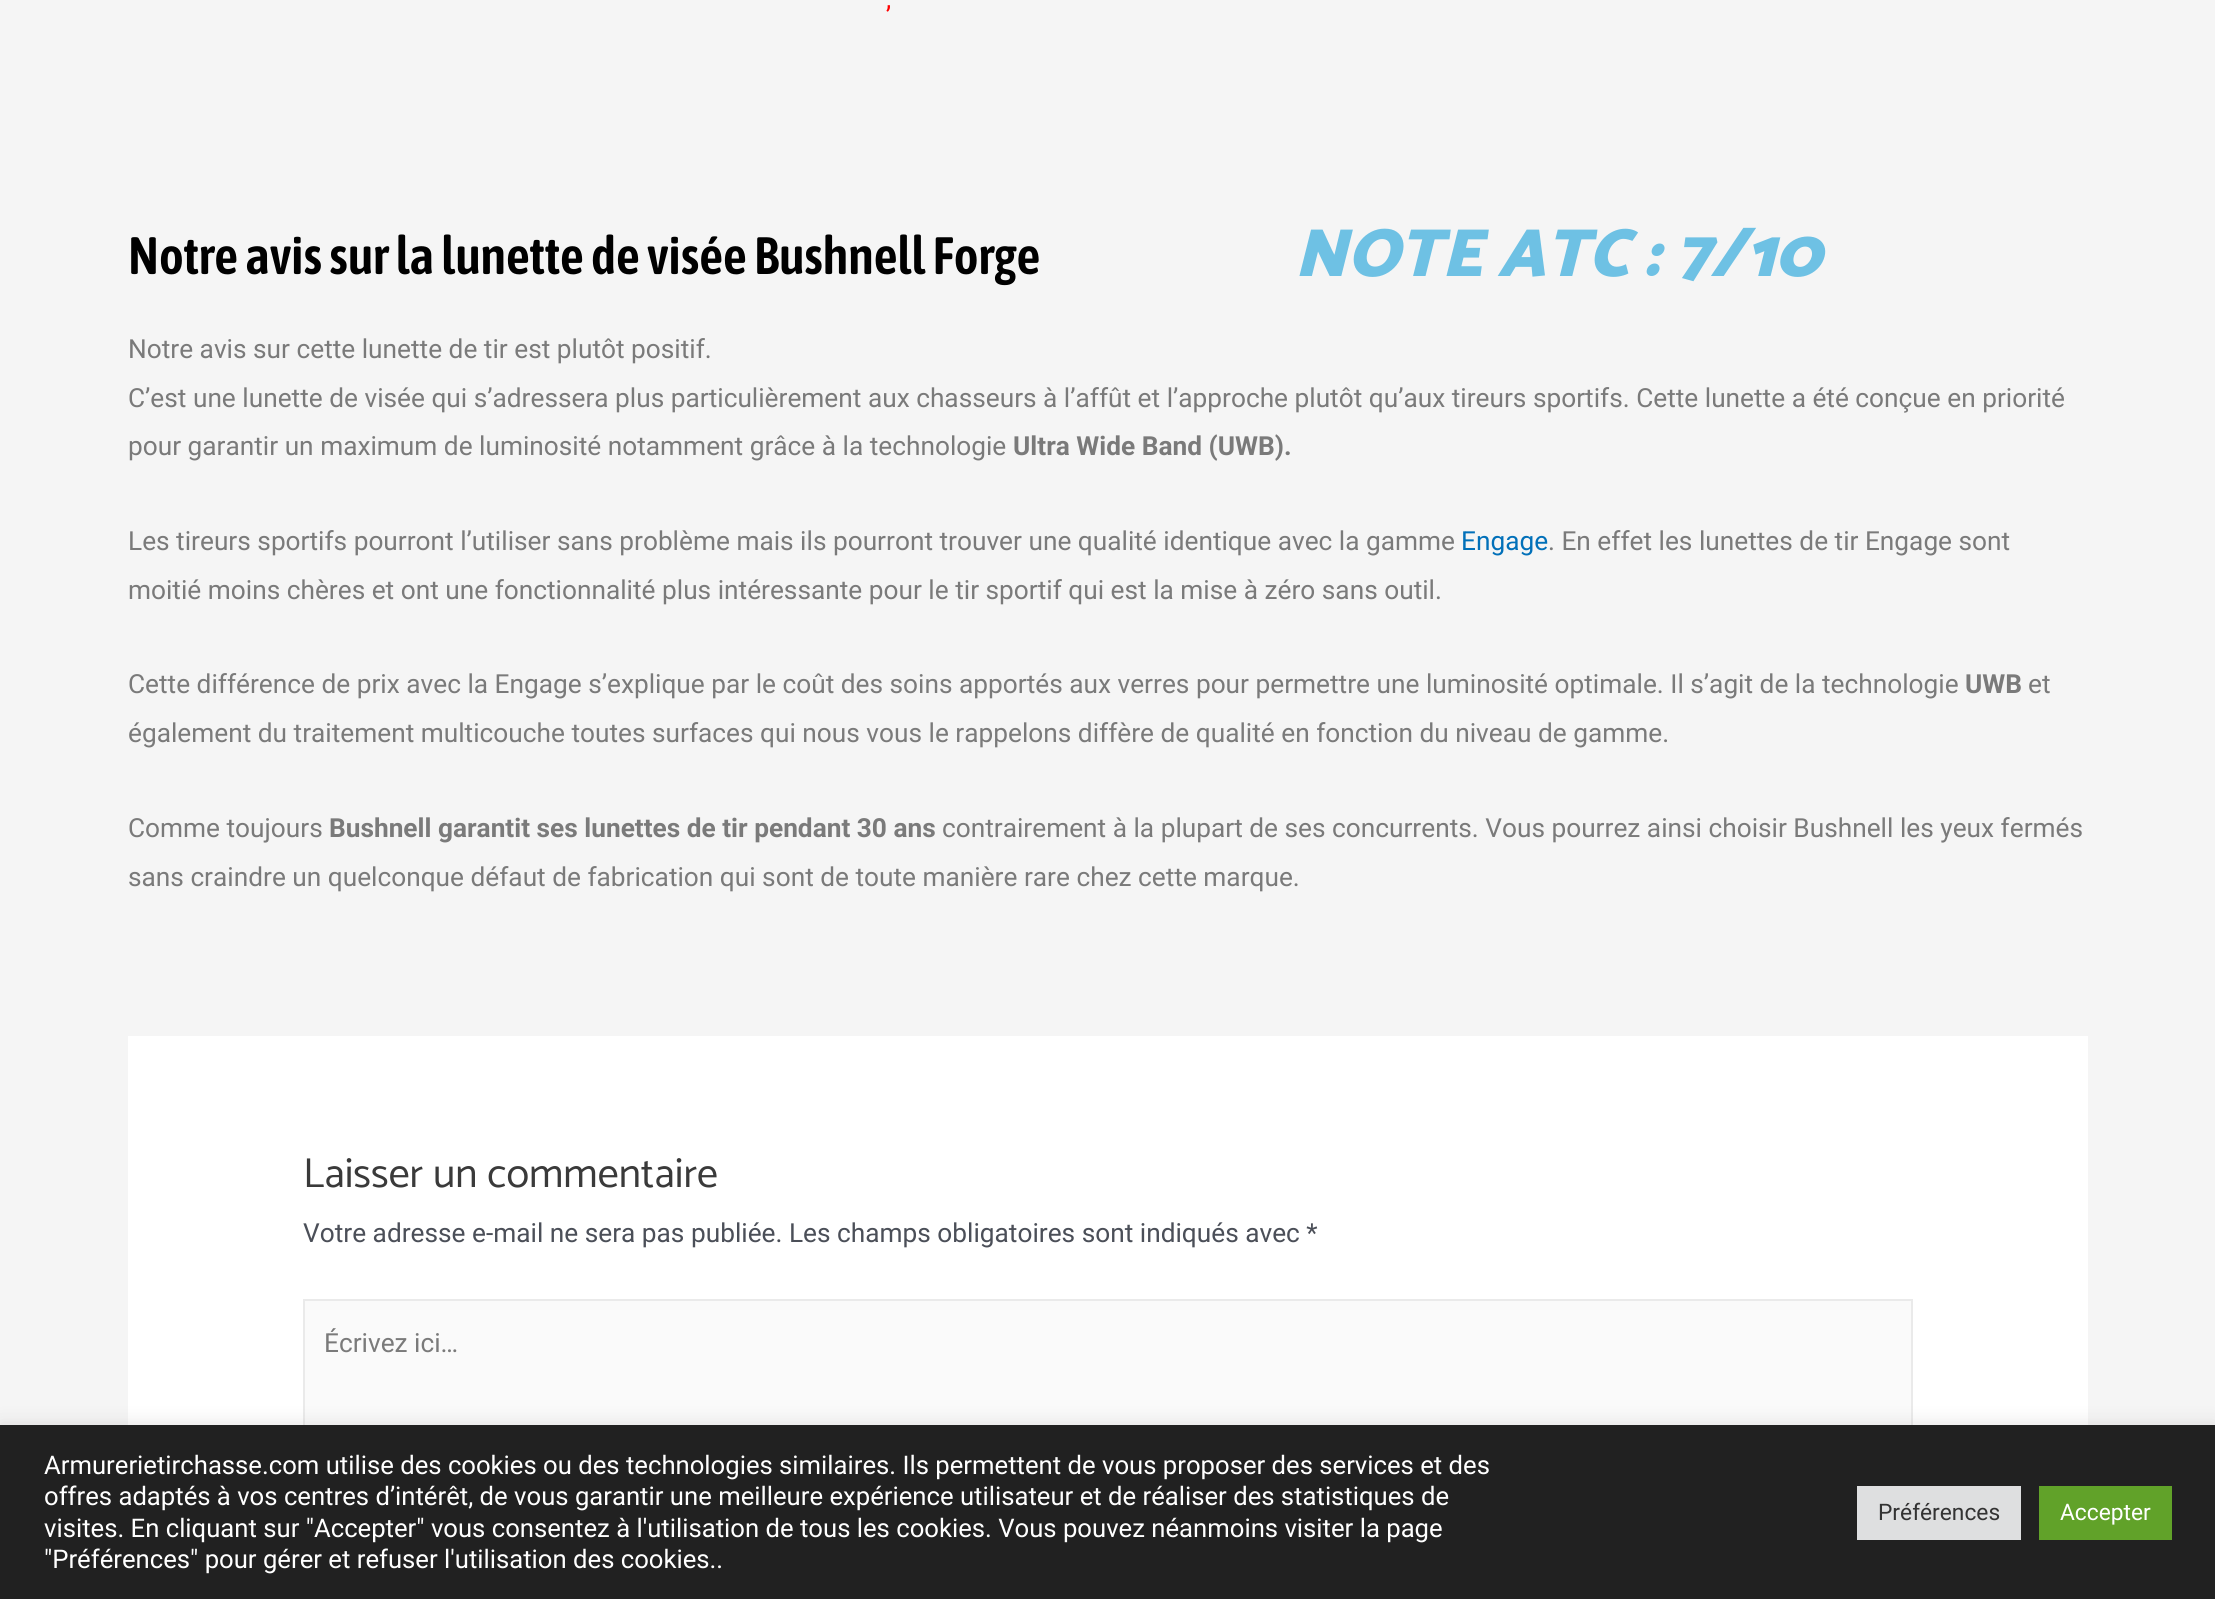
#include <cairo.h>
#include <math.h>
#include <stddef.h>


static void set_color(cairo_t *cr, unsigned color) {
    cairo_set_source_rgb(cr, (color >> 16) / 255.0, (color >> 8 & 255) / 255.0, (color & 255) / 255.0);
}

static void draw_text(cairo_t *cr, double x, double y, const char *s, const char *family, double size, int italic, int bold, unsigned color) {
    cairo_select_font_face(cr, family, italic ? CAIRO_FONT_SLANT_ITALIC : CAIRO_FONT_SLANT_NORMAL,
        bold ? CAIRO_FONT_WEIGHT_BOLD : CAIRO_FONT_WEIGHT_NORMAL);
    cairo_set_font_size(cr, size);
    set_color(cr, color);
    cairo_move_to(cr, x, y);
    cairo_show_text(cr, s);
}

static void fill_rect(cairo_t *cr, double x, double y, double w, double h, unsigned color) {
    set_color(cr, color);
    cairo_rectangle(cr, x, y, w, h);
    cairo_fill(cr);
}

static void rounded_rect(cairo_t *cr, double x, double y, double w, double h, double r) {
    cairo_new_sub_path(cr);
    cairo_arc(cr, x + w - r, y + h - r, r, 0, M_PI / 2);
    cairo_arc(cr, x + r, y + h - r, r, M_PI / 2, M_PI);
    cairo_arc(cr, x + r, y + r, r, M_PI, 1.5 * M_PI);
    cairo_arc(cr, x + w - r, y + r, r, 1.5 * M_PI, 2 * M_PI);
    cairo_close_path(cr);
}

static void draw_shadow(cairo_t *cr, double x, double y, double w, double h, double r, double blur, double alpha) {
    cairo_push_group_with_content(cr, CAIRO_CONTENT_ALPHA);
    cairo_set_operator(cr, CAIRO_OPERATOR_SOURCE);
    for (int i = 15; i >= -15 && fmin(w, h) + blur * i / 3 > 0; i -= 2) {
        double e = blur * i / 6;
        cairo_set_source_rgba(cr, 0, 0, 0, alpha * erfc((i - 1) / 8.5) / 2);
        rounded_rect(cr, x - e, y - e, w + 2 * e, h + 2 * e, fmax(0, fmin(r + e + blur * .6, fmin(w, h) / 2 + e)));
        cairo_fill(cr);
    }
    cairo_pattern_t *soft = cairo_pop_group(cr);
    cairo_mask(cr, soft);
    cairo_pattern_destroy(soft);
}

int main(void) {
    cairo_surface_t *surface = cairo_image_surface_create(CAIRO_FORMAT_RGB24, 2215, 1599);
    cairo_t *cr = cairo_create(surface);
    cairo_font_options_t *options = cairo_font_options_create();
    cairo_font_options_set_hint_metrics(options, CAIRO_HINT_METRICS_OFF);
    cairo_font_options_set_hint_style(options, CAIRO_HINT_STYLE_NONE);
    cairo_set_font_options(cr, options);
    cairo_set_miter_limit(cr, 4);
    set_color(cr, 0xF5F5F5);
    cairo_paint(cr);
    draw_text(cr, 886, 8, ",", "Roboto", 26.25, 0, 0, 0xFF0000);
    draw_text(cr, 128, 274, "Notre avis sur la lunette de visée Bushnell Forge", "Asap Condensed SemiBold", 52.5, 0, 0, 0x000000);
    draw_text(cr, 1294, 276, "NOTE ATC : 7/10", "Catamaran Black", 68.25, 1, 0, 0x6EC1E4);
    draw_text(cr, 128, 358, "Notre avis sur cette lunette de tir est plutôt positif.", "Roboto", 26.25, 0, 0, 0x7A7A7A);
    draw_text(cr, 128, 407, "C’est une lunette de visée qui s’adressera plus particulièrement aux chasseurs à l’affût et l’approche plutôt qu’aux tireurs sportifs. Cette lunette a été conçue en priorité", "Roboto", 26.25, 0, 0, 0x7A7A7A);
    draw_text(cr, 128, 455, "pour garantir un maximum de luminosité notamment grâce à la technologie", "Roboto", 26.25, 0, 0, 0x7A7A7A);
    draw_text(cr, 1013, 455, "Ultra Wide Band (UWB).", "Roboto", 26.25, 0, 1, 0x7A7A7A);
    draw_text(cr, 128, 550, "Les tireurs sportifs pourront l’utiliser sans problème mais ils pourront trouver une qualité identique avec la gamme", "Roboto", 26.25, 0, 0, 0x7A7A7A);
    draw_text(cr, 1461, 550, "Engage", "Roboto", 26.25, 0, 0, 0x0170B9);
    draw_text(cr, 1548, 550, ". En effet les lunettes de tir Engage sont", "Roboto", 26.25, 0, 0, 0x7A7A7A);
    draw_text(cr, 128, 599, "moitié moins chères et ont une fonctionnalité plus intéressante pour le tir sportif qui est la mise à zéro sans outil.", "Roboto", 26.25, 0, 0, 0x7A7A7A);
    draw_text(cr, 128, 693, "Cette différence de prix avec la Engage s’explique par le coût des soins apportés aux verres pour permettre une luminosité optimale. Il s’agit de la technologie", "Roboto", 26.25, 0, 0, 0x7A7A7A);
    draw_text(cr, 1965, 693, "UWB", "Roboto", 26.25, 0, 1, 0x7A7A7A);
    draw_text(cr, 2028, 693, "et", "Roboto", 26.25, 0, 0, 0x7A7A7A);
    draw_text(cr, 128, 742, "également du traitement multicouche toutes surfaces qui nous vous le rappelons diffère de qualité en fonction du niveau de gamme.", "Roboto", 26.25, 0, 0, 0x7A7A7A);
    draw_text(cr, 128, 837, "Comme toujours", "Roboto", 26.25, 0, 0, 0x7A7A7A);
    draw_text(cr, 329, 837, "Bushnell garantit ses lunettes de tir pendant 30 ans", "Roboto", 26.25, 0, 1, 0x7A7A7A);
    draw_text(cr, 942, 837, "contrairement à la plupart de ses concurrents. Vous pourrez ainsi choisir Bushnell les yeux fermés", "Roboto", 26.25, 0, 0, 0x7A7A7A);
    draw_text(cr, 128, 886, "sans craindre un quelconque défaut de fabrication qui sont de toute manière rare chez cette marque.", "Roboto", 26.25, 0, 0, 0x7A7A7A);
    fill_rect(cr, 128, 1036, 1960, 389, 0xFFFFFF);
    draw_text(cr, 303, 1187, "Laisser un commentaire", "Catamaran", 42, 0, 0, 0x3A3A3A);
    draw_text(cr, 303, 1242, "Votre adresse e-mail ne sera pas publiée. Les champs obligatoires sont indiqués avec *", "Roboto", 26.25, 0, 0, 0x4B4F58);
    fill_rect(cr, 305, 1301, 1606, 124, 0xFAFAFA);
    cairo_rectangle(cr, 304, 1300, 1608, 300);
    set_color(cr, 0xEAEAEA);
    cairo_stroke(cr);
    draw_text(cr, 324, 1352, "Écrivez ici…", "Roboto", 26.25, 0, 0, 0x7A7A7A);
    set_color(cr, 0xACABAB);
    draw_shadow(cr, 0, 1423, 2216, 175, 0, 9, 0.3);
    fill_rect(cr, 0, 1425, 2215, 174, 0x212121);
    draw_text(cr, 44, 1474, "Armurerietirchasse.com utilise des cookies ou des technologies similaires. Ils permettent de vous proposer des services et des", "Roboto", 25.67, 0, 0, 0xFFFFFF);
    draw_text(cr, 44, 1505, "offres adaptés à vos centres d’intérêt, de vous garantir une meilleure expérience utilisateur et de réaliser des statistiques de", "Roboto", 25.67, 0, 0, 0xFFFFFF);
    draw_text(cr, 44, 1537, "visites. En cliquant sur \"Accepter\" vous consentez à l'utilisation de tous les cookies. Vous pouvez néanmoins visiter la page", "Roboto", 25.67, 0, 0, 0xFFFFFF);
    draw_text(cr, 44, 1568, "\"Préférences\" pour gérer et refuser l'utilisation des cookies..", "Roboto", 25.67, 0, 0, 0xFFFFFF);
    fill_rect(cr, 1857, 1486, 164, 54, 0xDEDFE0);
    draw_text(cr, 1878, 1520, "Préférences", "Roboto", 22.75, 0, 0, 0x333333);
    fill_rect(cr, 2039, 1486, 133, 54, 0x61A229);
    draw_text(cr, 2060, 1520, "Accepter", "Roboto", 22.75, 0, 0, 0xFFFFFF);
    cairo_surface_write_to_png(surface, "output.png");
    cairo_font_options_destroy(options);
    cairo_destroy(cr);
    cairo_surface_destroy(surface);
    return 0;
}
